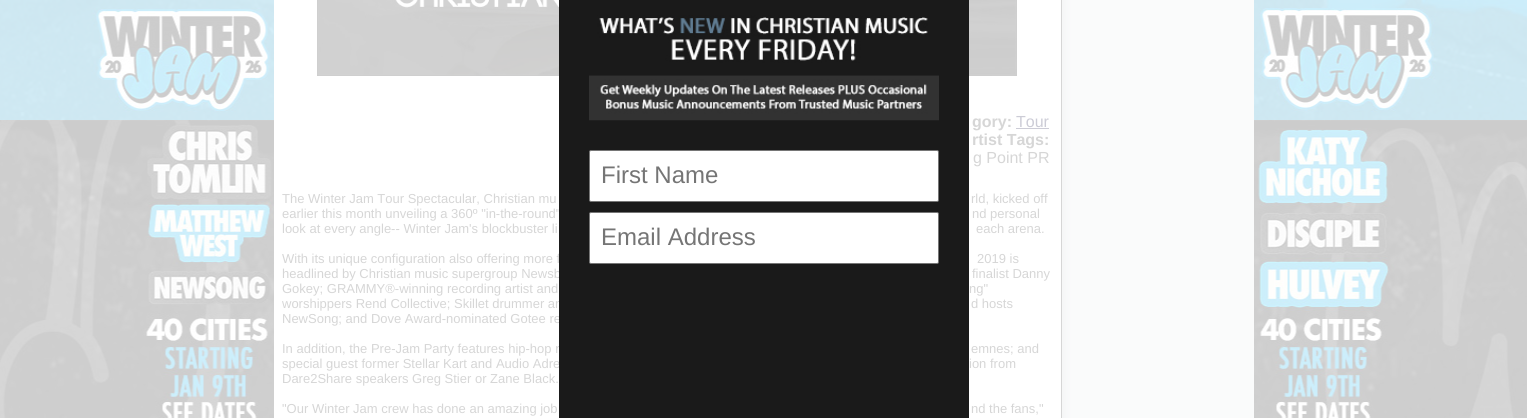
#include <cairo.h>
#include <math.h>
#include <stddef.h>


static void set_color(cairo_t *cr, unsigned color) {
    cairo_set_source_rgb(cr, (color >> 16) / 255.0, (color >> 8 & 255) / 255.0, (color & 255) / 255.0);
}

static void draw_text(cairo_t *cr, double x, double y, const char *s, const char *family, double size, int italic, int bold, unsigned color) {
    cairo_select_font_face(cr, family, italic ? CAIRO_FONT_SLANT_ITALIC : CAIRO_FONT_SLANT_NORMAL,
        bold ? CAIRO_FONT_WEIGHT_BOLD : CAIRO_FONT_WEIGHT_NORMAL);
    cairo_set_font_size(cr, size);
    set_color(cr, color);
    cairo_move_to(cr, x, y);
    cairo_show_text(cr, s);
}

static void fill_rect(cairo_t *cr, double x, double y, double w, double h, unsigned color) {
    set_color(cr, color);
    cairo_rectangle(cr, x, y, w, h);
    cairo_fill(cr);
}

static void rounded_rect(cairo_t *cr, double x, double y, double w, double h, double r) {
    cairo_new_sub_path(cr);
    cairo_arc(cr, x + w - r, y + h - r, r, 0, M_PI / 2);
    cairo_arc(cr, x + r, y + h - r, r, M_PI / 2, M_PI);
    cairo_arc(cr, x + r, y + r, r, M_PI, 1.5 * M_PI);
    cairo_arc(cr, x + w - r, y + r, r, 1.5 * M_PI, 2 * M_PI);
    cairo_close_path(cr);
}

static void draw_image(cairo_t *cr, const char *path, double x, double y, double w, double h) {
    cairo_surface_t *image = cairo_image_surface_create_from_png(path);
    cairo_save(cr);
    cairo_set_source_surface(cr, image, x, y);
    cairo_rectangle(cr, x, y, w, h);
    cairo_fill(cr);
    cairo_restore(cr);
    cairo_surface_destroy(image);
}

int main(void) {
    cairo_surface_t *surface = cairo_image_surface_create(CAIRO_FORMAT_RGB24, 1527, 418);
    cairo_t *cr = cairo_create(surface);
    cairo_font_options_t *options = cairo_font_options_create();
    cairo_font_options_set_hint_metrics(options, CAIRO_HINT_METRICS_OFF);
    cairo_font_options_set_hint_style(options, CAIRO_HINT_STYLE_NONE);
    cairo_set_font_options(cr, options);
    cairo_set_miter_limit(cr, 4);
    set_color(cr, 0xFFFFFF);
    cairo_paint(cr);
    draw_image(cr, "assets/img1.png", 0, 0, 1527, 418);
    fill_rect(cr, 274, 0, 787, 418, 0xFFFFFF);
    draw_image(cr, "assets/img2.png", 317, 0, 700, 76);
    draw_text(cr, 972, 127, "gory:", "Liberation Sans", 16, 0, 1, 0xD6D6D6);
    draw_text(cr, 1016, 127, "Tour", "Liberation Sans", 16, 0, 0, 0xCCCCD6);
    fill_rect(cr, 1016, 128, 33, 1, 0xCCCCD6);
    draw_text(cr, 972, 145, "rtist Tags:", "Liberation Sans", 16, 0, 1, 0xD6D6D6);
    draw_text(cr, 973, 163, "g Point PR", "Liberation Sans", 16, 0, 0, 0xD6D6D6);
    draw_text(cr, 282, 203, "The Winter Jam Tour Spectacular, Christian mu", "Liberation Sans", 13, 0, 0, 0xD6D6D6);
    draw_text(cr, 971, 203, "rld, kicked off", "Liberation Sans", 13, 0, 0, 0xD6D6D6);
    draw_text(cr, 282, 218, "earlier this month unveiling a 360º \"in-the-round\"", "Liberation Sans", 13, 0, 0, 0xD6D6D6);
    draw_text(cr, 972, 218, "nd personal", "Liberation Sans", 13, 0, 0, 0xD6D6D6);
    draw_text(cr, 282, 233, "look at every angle-- Winter Jam's blockbuster li", "Liberation Sans", 13, 0, 0, 0xD6D6D6);
    draw_text(cr, 976, 233, "each arena.", "Liberation Sans", 13, 0, 0, 0xD6D6D6);
    draw_text(cr, 282, 263, "With its unique configuration also offering more f", "Liberation Sans", 13, 0, 0, 0xD6D6D6);
    draw_text(cr, 977, 263, "2019 is", "Liberation Sans", 13, 0, 0, 0xD6D6D6);
    draw_text(cr, 282, 278, "headlined by Christian music supergroup Newsb", "Liberation Sans", 13, 0, 0, 0xD6D6D6);
    draw_text(cr, 972, 278, "finalist Danny", "Liberation Sans", 13, 0, 0, 0xD6D6D6);
    draw_text(cr, 282, 293, "Gokey; GRAMMY®-winning recording artist and", "Liberation Sans", 13, 0, 0, 0xD6D6D6);
    draw_text(cr, 969, 293, "ng\"", "Liberation Sans", 13, 0, 0, 0xD6D6D6);
    draw_text(cr, 282, 308, "worshippers Rend Collective; Skillet drummer an", "Liberation Sans", 13, 0, 0, 0xD6D6D6);
    draw_text(cr, 971, 308, "d hosts", "Liberation Sans", 13, 0, 0, 0xD6D6D6);
    draw_text(cr, 282, 323, "NewSong; and Dove Award-nominated Gotee re", "Liberation Sans", 13, 0, 0, 0xD6D6D6);
    draw_text(cr, 282, 353, "In addition, the Pre-Jam Party features hip-hop r", "Liberation Sans", 13, 0, 0, 0xD6D6D6);
    draw_text(cr, 971, 353, "emnes; and", "Liberation Sans", 13, 0, 0, 0xD6D6D6);
    draw_text(cr, 282, 368, "special guest former Stellar Kart and Audio Adre", "Liberation Sans", 13, 0, 0, 0xD6D6D6);
    draw_text(cr, 969, 368, "ion from", "Liberation Sans", 13, 0, 0, 0xD6D6D6);
    draw_text(cr, 282, 383, "Dare2Share speakers Greg Stier or Zane Black.", "Liberation Sans", 13, 0, 0, 0xD6D6D6);
    draw_text(cr, 282, 413, "\"Our Winter Jam crew has done an amazing job", "Liberation Sans", 13, 0, 0, 0xD6D6D6);
    draw_text(cr, 971, 413, "nd the fans,\"", "Liberation Sans", 13, 0, 0, 0xD6D6D6);
    draw_image(cr, "assets/img3.png", 1061, 0, 193, 418);
    fill_rect(cr, 559, 0, 410, 418, 0x1A1A1A);
    draw_image(cr, "assets/img4.png", 589, 15, 350, 106);
    set_color(cr, 0xFFFFFF);
    rounded_rect(cr, 589.5, 150.5, 349, 51, 1.5);
    cairo_fill_preserve(cr);
    set_color(cr, 0x767676);
    cairo_set_line_width(cr, 1);
    cairo_stroke(cr);
    draw_text(cr, 601, 183, "First Name", "Liberation Sans", 24, 0, 0, 0x757575);
    set_color(cr, 0xFFFFFF);
    rounded_rect(cr, 589.5, 212.5, 349, 51, 1.5);
    cairo_fill_preserve(cr);
    set_color(cr, 0x767676);
    cairo_stroke(cr);
    draw_text(cr, 601, 245, "Email Address", "Liberation Sans", 24, 0, 0, 0x757575);
    cairo_surface_write_to_png(surface, "output.png");
    cairo_font_options_destroy(options);
    cairo_destroy(cr);
    cairo_surface_destroy(surface);
    return 0;
}
